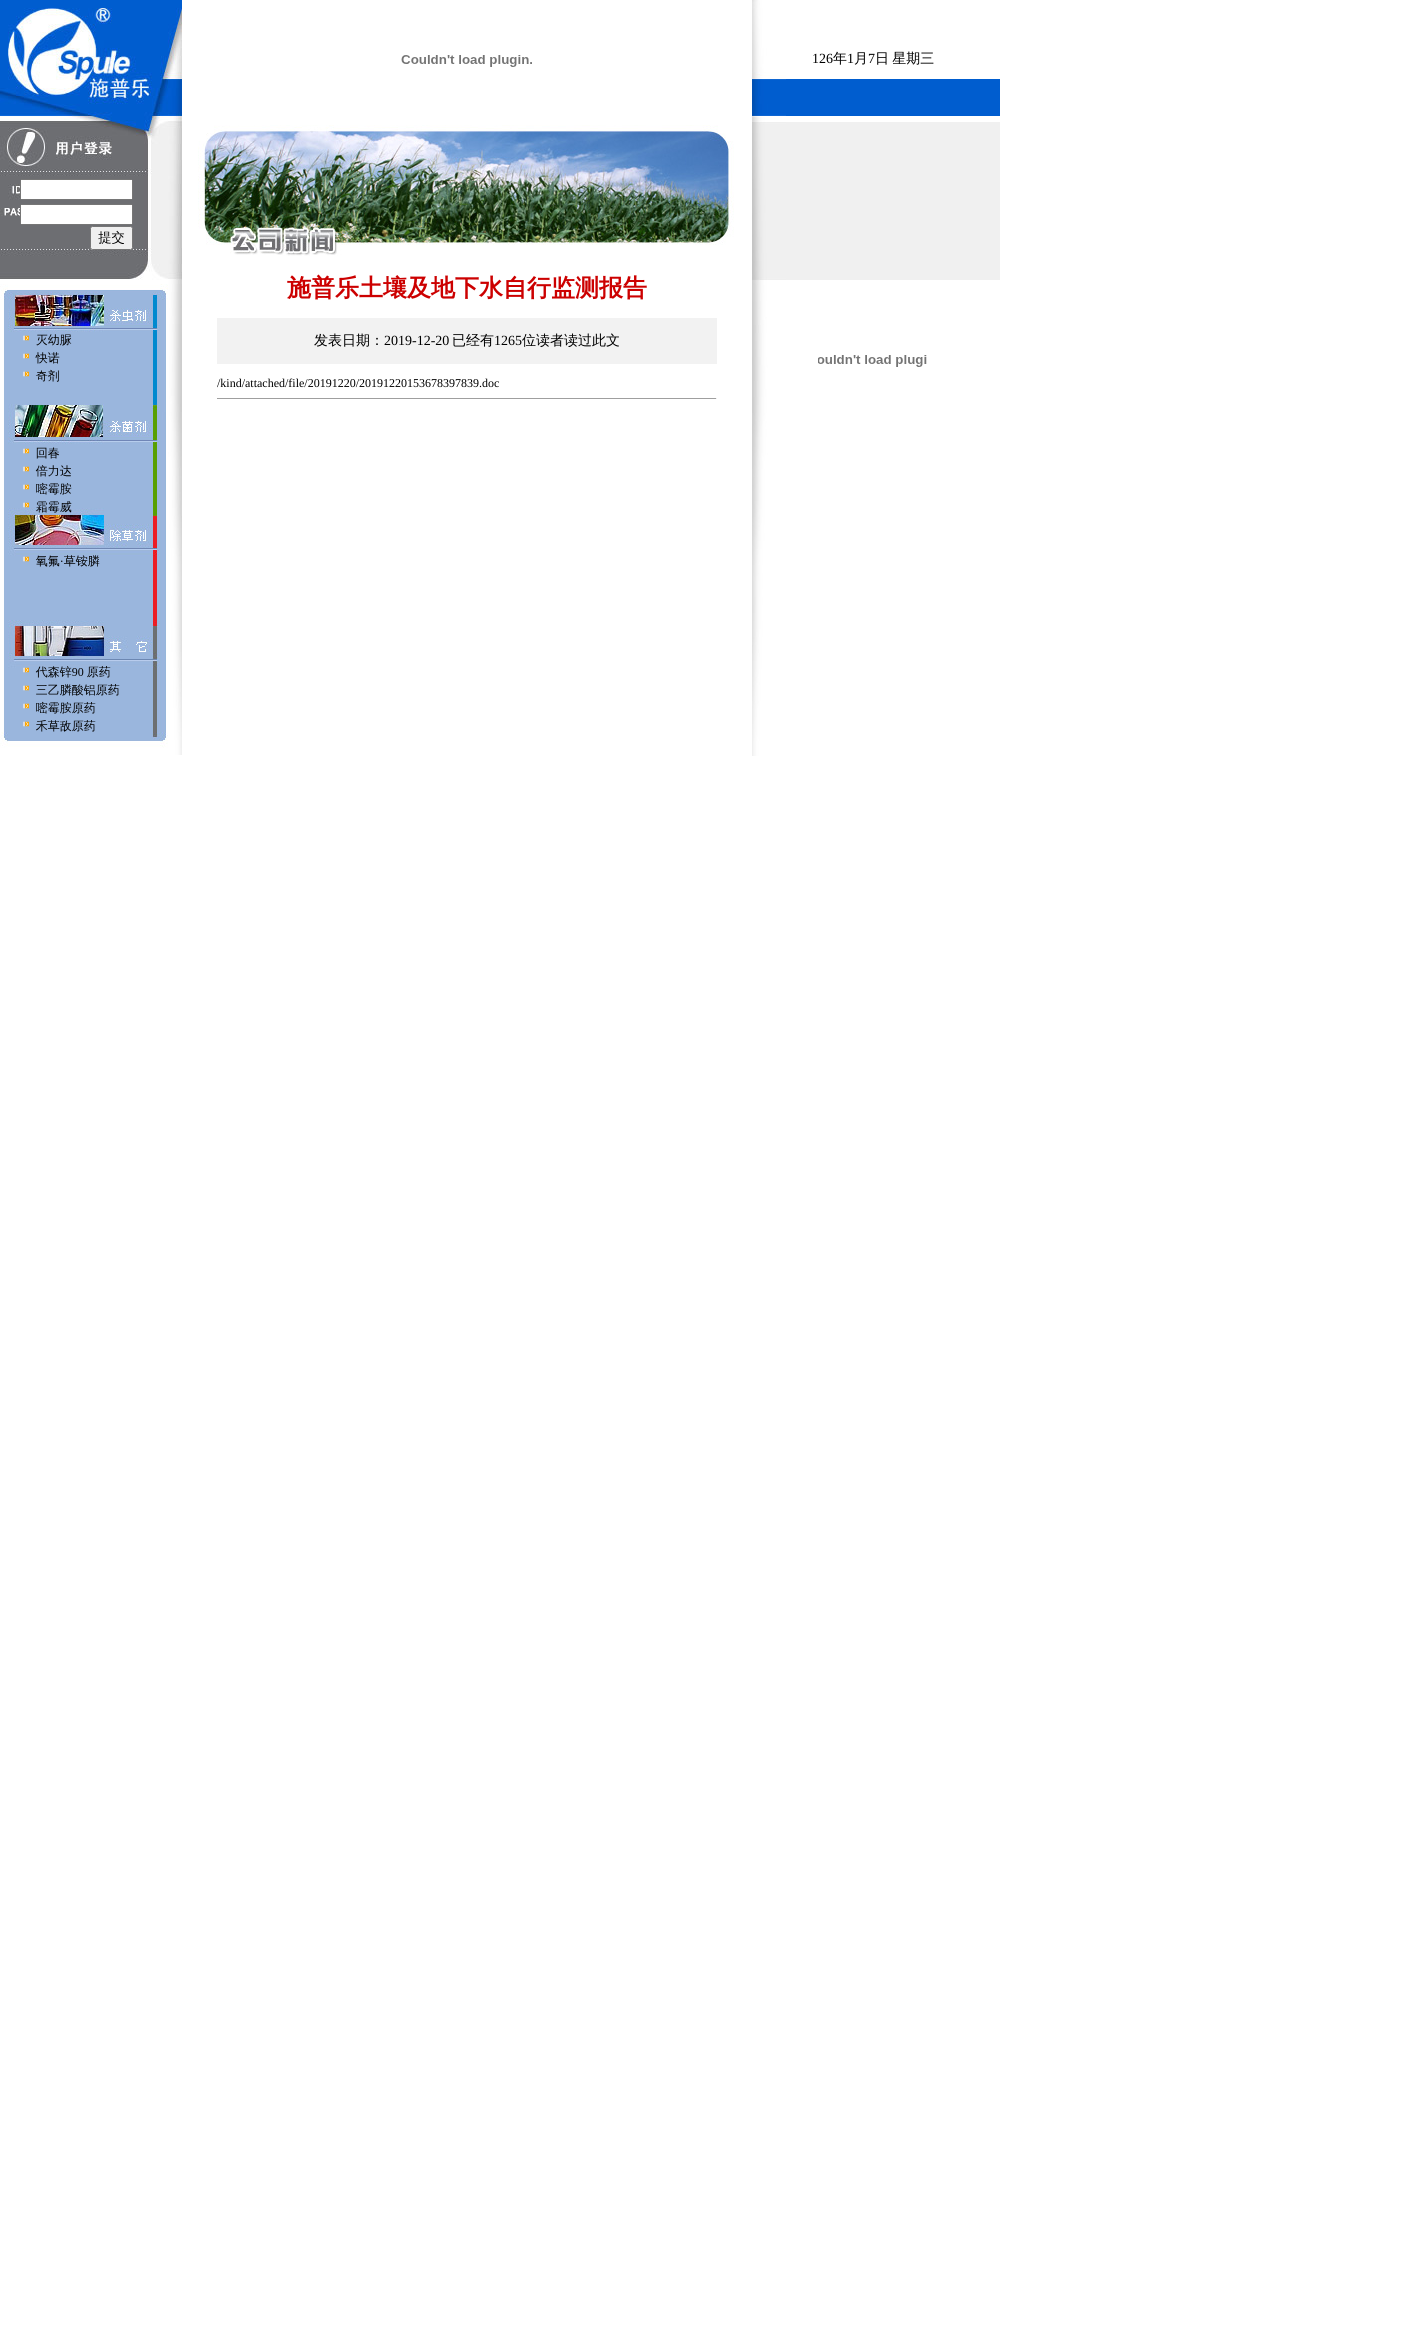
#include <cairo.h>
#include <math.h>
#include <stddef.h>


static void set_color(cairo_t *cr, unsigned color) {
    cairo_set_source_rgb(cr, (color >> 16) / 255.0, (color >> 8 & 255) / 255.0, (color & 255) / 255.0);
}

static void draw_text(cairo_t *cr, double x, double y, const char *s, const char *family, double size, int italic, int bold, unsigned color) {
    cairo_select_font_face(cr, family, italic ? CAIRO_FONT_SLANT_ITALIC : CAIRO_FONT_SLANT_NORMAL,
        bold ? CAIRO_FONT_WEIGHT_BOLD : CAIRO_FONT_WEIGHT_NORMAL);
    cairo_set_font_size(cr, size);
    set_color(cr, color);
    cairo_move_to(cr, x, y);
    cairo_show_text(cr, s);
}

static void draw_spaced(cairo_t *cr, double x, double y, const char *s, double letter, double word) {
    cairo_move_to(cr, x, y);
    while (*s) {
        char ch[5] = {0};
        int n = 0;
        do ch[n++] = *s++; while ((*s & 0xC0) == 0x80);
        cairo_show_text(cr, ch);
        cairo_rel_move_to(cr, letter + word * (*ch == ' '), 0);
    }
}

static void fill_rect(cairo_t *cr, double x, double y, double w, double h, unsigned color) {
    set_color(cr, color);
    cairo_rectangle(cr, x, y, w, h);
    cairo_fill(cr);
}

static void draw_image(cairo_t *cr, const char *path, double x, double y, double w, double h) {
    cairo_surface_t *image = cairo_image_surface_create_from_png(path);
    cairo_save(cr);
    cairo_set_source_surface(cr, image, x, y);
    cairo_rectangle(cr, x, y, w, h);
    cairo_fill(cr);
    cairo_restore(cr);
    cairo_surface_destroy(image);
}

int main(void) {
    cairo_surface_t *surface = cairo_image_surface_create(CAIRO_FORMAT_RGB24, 1414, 2327);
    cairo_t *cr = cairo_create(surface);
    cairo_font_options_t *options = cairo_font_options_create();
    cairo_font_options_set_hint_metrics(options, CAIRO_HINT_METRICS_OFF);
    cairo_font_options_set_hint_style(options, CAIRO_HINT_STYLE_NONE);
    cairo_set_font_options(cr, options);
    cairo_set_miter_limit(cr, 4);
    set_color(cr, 0xFFFFFF);
    cairo_paint(cr);
    draw_image(cr, "assets/img1.png", 0, 0, 182, 755);
    draw_image(cr, "assets/img2.png", 752, 0, 34, 117);
    fill_rect(cr, 786, 79, 214, 37, 0x005DCF);
    draw_text(cr, 812, 63, "126", "Liberation Serif", 14, 0, 0, 0x000000);
    draw_text(cr, 833, 63, "年", "WenQuanYi Zen Hei Medium", 14, 0, 0, 0x000000);
    draw_text(cr, 847, 63, "1", "Liberation Serif", 14, 0, 0, 0x000000);
    draw_text(cr, 854, 63, "月", "WenQuanYi Zen Hei Medium", 14, 0, 0, 0x000000);
    draw_text(cr, 868, 63, "7", "Liberation Serif", 14, 0, 0, 0x000000);
    cairo_select_font_face(cr, "WenQuanYi Zen Hei Medium", CAIRO_FONT_SLANT_NORMAL, CAIRO_FONT_WEIGHT_NORMAL);
    draw_spaced(cr, 875, 63, "日 星期三", 0, -1);
    draw_image(cr, "assets/img3.png", 401, 55, 131, 12);
    draw_image(cr, "assets/img4.png", 198, 125, 536, 131);
    draw_text(cr, 287, 296, "施普乐土壤及地下水自行监测报告", "WenQuanYi Zen Hei", 24, 0, 1, 0xCC0000);
    fill_rect(cr, 217, 318, 500, 46, 0xF2F2F2);
    draw_text(cr, 314, 345, "发表日期：", "WenQuanYi Zen Hei Medium", 14, 0, 0, 0x000000);
    draw_text(cr, 384, 345, "2019-12-20", "Liberation Serif", 14, 0, 0, 0x000000);
    draw_text(cr, 452, 345, "已经有", "WenQuanYi Zen Hei Medium", 14, 0, 0, 0x000000);
    draw_text(cr, 494, 345, "1265", "Liberation Serif", 14, 0, 0, 0x000000);
    draw_text(cr, 522, 345, "位读者读过此文", "WenQuanYi Zen Hei Medium", 14, 0, 0, 0x000000);
    draw_text(cr, 217, 387, "/kind/attached/file/20191220/20191220153678397839.doc", "Liberation Serif", 12, 0, 0, 0x000000);
    fill_rect(cr, 217, 398, 500, 1, 0x9F9F9F);
    fill_rect(cr, 716, 398, 1, 1, 0xEEEEEE);
    draw_image(cr, "assets/img5.png", 752, 117, 34, 639);
    fill_rect(cr, 786, 122, 214, 158, 0xF0F0F0);
    draw_image(cr, "assets/img6.png", 818, 355, 109, 12);
    cairo_surface_write_to_png(surface, "output.png");
    cairo_font_options_destroy(options);
    cairo_destroy(cr);
    cairo_surface_destroy(surface);
    return 0;
}
